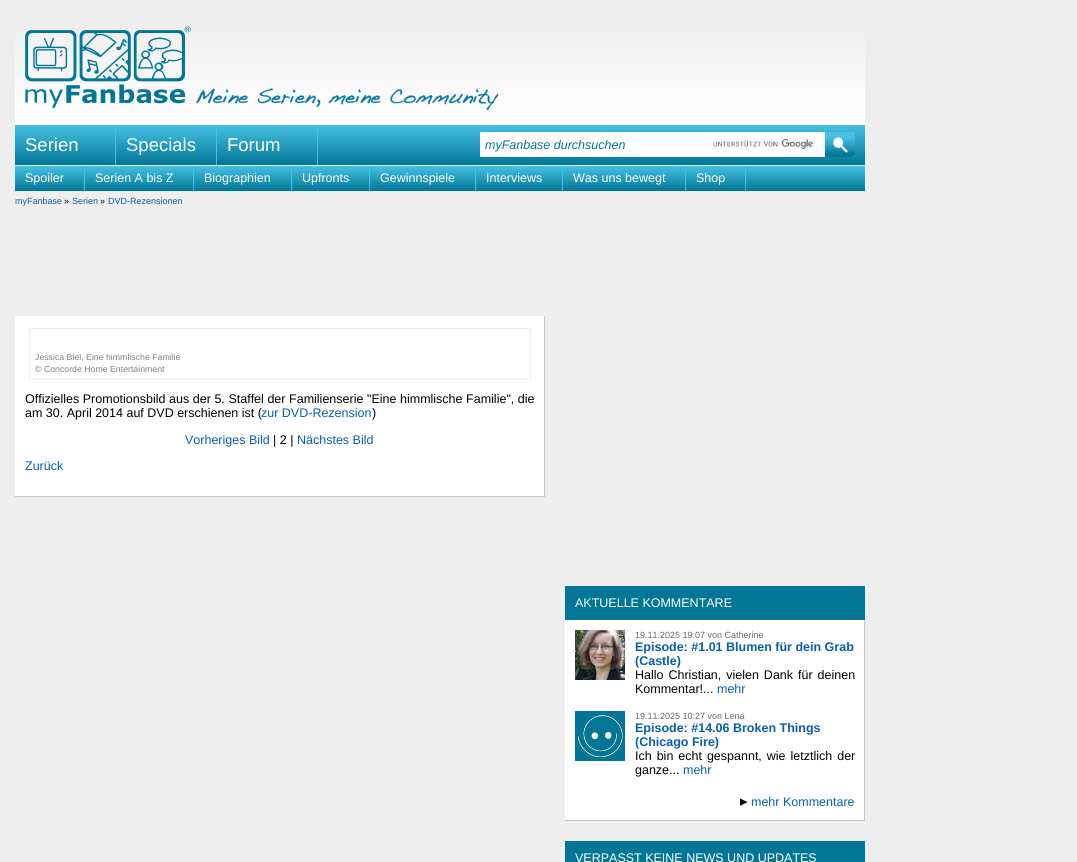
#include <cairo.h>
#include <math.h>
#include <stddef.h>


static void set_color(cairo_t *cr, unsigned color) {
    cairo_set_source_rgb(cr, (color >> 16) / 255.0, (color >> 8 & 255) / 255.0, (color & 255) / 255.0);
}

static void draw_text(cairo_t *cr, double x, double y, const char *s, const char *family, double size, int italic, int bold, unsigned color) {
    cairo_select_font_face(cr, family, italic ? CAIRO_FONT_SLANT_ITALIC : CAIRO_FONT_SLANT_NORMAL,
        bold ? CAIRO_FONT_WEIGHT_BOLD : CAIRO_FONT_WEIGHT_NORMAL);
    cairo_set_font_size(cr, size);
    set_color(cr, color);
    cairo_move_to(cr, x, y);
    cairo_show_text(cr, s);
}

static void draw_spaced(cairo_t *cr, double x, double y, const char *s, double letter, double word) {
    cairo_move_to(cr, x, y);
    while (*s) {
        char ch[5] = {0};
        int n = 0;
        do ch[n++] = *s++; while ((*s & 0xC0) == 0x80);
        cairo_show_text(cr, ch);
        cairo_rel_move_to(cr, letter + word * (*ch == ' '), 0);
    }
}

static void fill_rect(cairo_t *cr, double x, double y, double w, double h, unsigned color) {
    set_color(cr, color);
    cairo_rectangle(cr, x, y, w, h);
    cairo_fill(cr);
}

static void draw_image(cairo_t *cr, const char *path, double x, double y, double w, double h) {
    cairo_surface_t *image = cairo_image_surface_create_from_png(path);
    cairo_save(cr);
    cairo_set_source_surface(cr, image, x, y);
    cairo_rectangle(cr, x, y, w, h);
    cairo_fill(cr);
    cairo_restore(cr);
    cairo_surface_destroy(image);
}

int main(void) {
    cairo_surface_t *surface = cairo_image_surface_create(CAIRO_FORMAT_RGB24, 1077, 862);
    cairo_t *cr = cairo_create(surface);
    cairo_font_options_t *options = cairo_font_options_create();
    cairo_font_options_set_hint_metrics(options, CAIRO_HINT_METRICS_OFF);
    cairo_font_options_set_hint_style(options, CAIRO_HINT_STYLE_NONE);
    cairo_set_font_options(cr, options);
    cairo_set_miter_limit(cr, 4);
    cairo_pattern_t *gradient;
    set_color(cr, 0xEEEEEE);
    cairo_paint(cr);
    gradient = cairo_pattern_create_linear(440, 15, 440, 125);
    cairo_pattern_add_color_stop_rgba(gradient, 0, 0.933, 0.933, 0.933, 1);
    cairo_pattern_add_color_stop_rgba(gradient, 1, 1, 1, 1, 1);
    cairo_set_source(cr, gradient);
    cairo_pattern_destroy(gradient);
    cairo_rectangle(cr, 15, 31, 850, 94);
    cairo_fill(cr);
    draw_image(cr, "assets/img1.png", 25, 26, 166, 82);
    draw_image(cr, "assets/img2.png", 196, 88, 303, 23);
    gradient = cairo_pattern_create_linear(440, 125, 440, 165);
    cairo_pattern_add_color_stop_rgba(gradient, 0, 0.275, 0.757, 0.89, 1);
    cairo_pattern_add_color_stop_rgba(gradient, 1, 0.004, 0.463, 0.592, 1);
    cairo_set_source(cr, gradient);
    cairo_pattern_destroy(gradient);
    cairo_rectangle(cr, 15, 125, 850, 40);
    cairo_fill(cr);
    fill_rect(cr, 115, 125, 1, 40, 0x46C1E3);
    draw_text(cr, 25, 151, "Serien", "Liberation Sans", 18.5, 0, 0, 0xFFFFFF);
    fill_rect(cr, 216, 125, 1, 40, 0x46C1E3);
    draw_text(cr, 126, 151, "Specials", "Liberation Sans", 18.5, 0, 0, 0xFFFFFF);
    fill_rect(cr, 317, 125, 1, 40, 0x46C1E3);
    draw_text(cr, 227, 151, "Forum", "Liberation Sans", 18.5, 0, 0, 0xFFFFFF);
    fill_rect(cr, 480, 132, 345, 25, 0xFFFFFF);
    draw_image(cr, "assets/img3.png", 713, 139, 100, 10);
    draw_text(cr, 485, 149, "myFanbase durchsuchen", "Liberation Sans", 12.5, 1, 0, 0x017697);
    set_color(cr, 0xFFFFFF);
    cairo_new_path(cr);
    cairo_move_to(cr, 825, 132);
    cairo_line_to(cr, 852, 132);
    cairo_curve_to(cr, 853.5, 132, 855, 133.5, 855, 135);
    cairo_line_to(cr, 855, 154);
    cairo_curve_to(cr, 855, 155.5, 853.5, 157, 852, 157);
    cairo_line_to(cr, 825, 157);
    cairo_close_path(cr);
    cairo_fill(cr);
    draw_image(cr, "assets/img4.png", 825, 132, 30, 25);
    gradient = cairo_pattern_create_linear(440, 166, 440, 191);
    cairo_pattern_add_color_stop_rgba(gradient, 0, 0.275, 0.757, 0.89, 1);
    cairo_pattern_add_color_stop_rgba(gradient, 1, 0.004, 0.463, 0.592, 1);
    cairo_set_source(cr, gradient);
    cairo_pattern_destroy(gradient);
    cairo_rectangle(cr, 15, 166, 850, 25);
    cairo_fill(cr);
    fill_rect(cr, 84, 166, 1, 25, 0x46C1E3);
    draw_text(cr, 25, 182, "Spoiler", "Liberation Sans", 12.5, 0, 0, 0xFFFFFF);
    fill_rect(cr, 193, 166, 1, 25, 0x46C1E3);
    draw_text(cr, 95, 182, "Serien A bis Z", "Liberation Sans", 12.5, 0, 0, 0xFFFFFF);
    fill_rect(cr, 291, 166, 1, 25, 0x46C1E3);
    draw_text(cr, 204, 182, "Biographien", "Liberation Sans", 12.5, 0, 0, 0xFFFFFF);
    fill_rect(cr, 369, 166, 1, 25, 0x46C1E3);
    draw_text(cr, 302, 182, "Upfronts", "Liberation Sans", 12.5, 0, 0, 0xFFFFFF);
    fill_rect(cr, 475, 166, 1, 25, 0x46C1E3);
    draw_text(cr, 380, 182, "Gewinnspiele", "Liberation Sans", 12.5, 0, 0, 0xFFFFFF);
    fill_rect(cr, 562, 166, 1, 25, 0x46C1E3);
    draw_text(cr, 486, 182, "Interviews", "Liberation Sans", 12.5, 0, 0, 0xFFFFFF);
    fill_rect(cr, 685, 166, 1, 25, 0x46C1E3);
    draw_text(cr, 573, 182, "Was uns bewegt", "Liberation Sans", 12.5, 0, 0, 0xFFFFFF);
    fill_rect(cr, 745, 166, 1, 25, 0x46C1E3);
    draw_text(cr, 696, 182, "Shop", "Liberation Sans", 12.5, 0, 0, 0xFFFFFF);
    draw_text(cr, 15, 204, "myFanbase", "Liberation Sans", 9, 0, 0, 0x085EAE);
    draw_text(cr, 64, 204, "»", "Liberation Sans", 9, 0, 0, 0x000000);
    draw_text(cr, 72, 204, "Serien", "Liberation Sans", 9, 0, 0, 0x085EAE);
    draw_text(cr, 100, 204, "»", "Liberation Sans", 9, 0, 0, 0x000000);
    draw_text(cr, 108, 204, "DVD-Rezensionen", "Liberation Sans", 9, 0, 0, 0x085EAE);
    fill_rect(cr, 15, 316, 529, 180, 0xFFFFFF);
    fill_rect(cr, 544, 316, 1, 181, 0xC6C6C6);
    fill_rect(cr, 15, 496, 530, 1, 0xC6C6C6);
    cairo_rectangle(cr, 29.5, 328.5, 501, 51);
    set_color(cr, 0xEEEEEE);
    cairo_set_line_width(cr, 1);
    cairo_stroke(cr);
    draw_text(cr, 35, 360, "Jessica Biel, Eine himmlische Familie", "Liberation Sans", 8.75, 0, 0, 0x808080);
    draw_text(cr, 35, 372, "© Concorde Home Entertainment", "Liberation Sans", 8.75, 0, 0, 0x808080);
    cairo_set_font_size(cr, 12.5);
    set_color(cr, 0x000000);
    draw_spaced(cr, 25, 403, "Offizielles Promotionsbild aus der 5. Staffel der Familienserie \"Eine himmlische Familie\", die", 0, 0.1);
    draw_text(cr, 25, 417, "am 30. April 2014 auf DVD erschienen ist (", "Liberation Sans", 12.5, 0, 0, 0x000000);
    draw_text(cr, 261, 417, "zur DVD-Rezension", "Liberation Sans", 12.5, 0, 0, 0x085EAE);
    draw_text(cr, 372, 417, ")", "Liberation Sans", 12.5, 0, 0, 0x000000);
    draw_text(cr, 185, 444, "Vorheriges Bild", "Liberation Sans", 12.5, 0, 0, 0x085EAE);
    draw_text(cr, 273, 444, "| 2 |", "Liberation Sans", 12.5, 0, 0, 0x000000);
    draw_text(cr, 297, 444, "Nächstes Bild", "Liberation Sans", 12.5, 0, 0, 0x085EAE);
    draw_text(cr, 25, 470, "Zurück", "Liberation Sans", 12.5, 0, 0, 0x085EAE);
    fill_rect(cr, 565, 620, 299, 200, 0xFFFFFF);
    fill_rect(cr, 864, 620, 1, 201, 0xC6C6C6);
    fill_rect(cr, 565, 820, 300, 1, 0xC6C6C6);
    fill_rect(cr, 565, 586, 300, 34, 0x017697);
    draw_text(cr, 575, 607, "AKTUELLE KOMMENTARE", "Liberation Sans", 12.5, 0, 0, 0xFFFFFF);
    draw_image(cr, "assets/img5.png", 575, 630, 50, 50);
    draw_text(cr, 635, 638, "19.11.2025 19:07 von Catherine", "Liberation Sans", 9, 0, 0, 0x666666);
    draw_text(cr, 635, 651, "Episode: #1.01 Blumen für dein Grab", "Liberation Sans", 12.5, 0, 1, 0x085EAE);
    draw_text(cr, 635, 665, "(Castle)", "Liberation Sans", 12.5, 0, 1, 0x085EAE);
    cairo_select_font_face(cr, "Liberation Sans", CAIRO_FONT_SLANT_NORMAL, CAIRO_FONT_WEIGHT_NORMAL);
    set_color(cr, 0x000000);
    draw_spaced(cr, 635, 679, "Hallo Christian, vielen Dank für deinen", 0, 1.5);
    draw_text(cr, 635, 693, "Kommentar!...", "Liberation Sans", 12.5, 0, 0, 0x000000);
    draw_text(cr, 717, 693, "mehr", "Liberation Sans", 12.5, 0, 0, 0x085EAE);
    draw_image(cr, "assets/img6.png", 575, 711, 50, 50);
    draw_text(cr, 635, 719, "19.11.2025 10:27 von Lena", "Liberation Sans", 9, 0, 0, 0x666666);
    draw_text(cr, 635, 732, "Episode: #14.06 Broken Things", "Liberation Sans", 12.5, 0, 1, 0x085EAE);
    draw_text(cr, 635, 746, "(Chicago Fire)", "Liberation Sans", 12.5, 0, 1, 0x085EAE);
    cairo_select_font_face(cr, "Liberation Sans", CAIRO_FONT_SLANT_NORMAL, CAIRO_FONT_WEIGHT_NORMAL);
    set_color(cr, 0x000000);
    draw_spaced(cr, 635, 760, "Ich bin echt gespannt, wie letztlich der", 0, 1.5);
    draw_text(cr, 635, 774, "ganze...", "Liberation Sans", 12.5, 0, 0, 0x000000);
    draw_text(cr, 683, 774, "mehr", "Liberation Sans", 12.5, 0, 0, 0x085EAE);
    cairo_select_font_face(cr, "DejaVu Sans", CAIRO_FONT_SLANT_NORMAL, CAIRO_FONT_WEIGHT_NORMAL);
    cairo_set_font_size(cr, 15);
    set_color(cr, 0x000000);
    draw_spaced(cr, 740, 806, "▸", 3, 0);
    draw_text(cr, 751, 806, "mehr Kommentare", "Liberation Sans", 12.5, 0, 0, 0x085EAE);
    fill_rect(cr, 565, 841, 300, 21, 0x017697);
    draw_text(cr, 575, 862, "VERPASST KEINE NEWS UND UPDATES", "Liberation Sans", 12.5, 0, 0, 0xFFFFFF);
    cairo_surface_write_to_png(surface, "output.png");
    cairo_font_options_destroy(options);
    cairo_destroy(cr);
    cairo_surface_destroy(surface);
    return 0;
}
